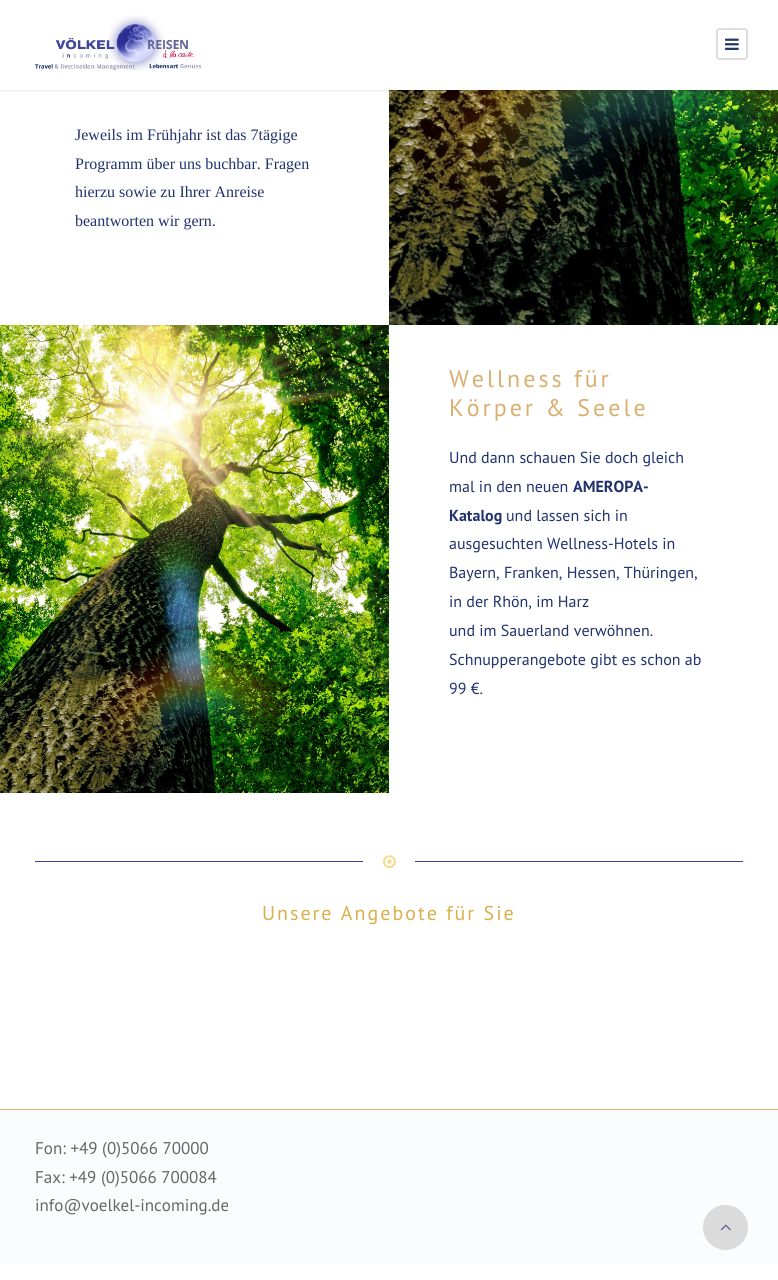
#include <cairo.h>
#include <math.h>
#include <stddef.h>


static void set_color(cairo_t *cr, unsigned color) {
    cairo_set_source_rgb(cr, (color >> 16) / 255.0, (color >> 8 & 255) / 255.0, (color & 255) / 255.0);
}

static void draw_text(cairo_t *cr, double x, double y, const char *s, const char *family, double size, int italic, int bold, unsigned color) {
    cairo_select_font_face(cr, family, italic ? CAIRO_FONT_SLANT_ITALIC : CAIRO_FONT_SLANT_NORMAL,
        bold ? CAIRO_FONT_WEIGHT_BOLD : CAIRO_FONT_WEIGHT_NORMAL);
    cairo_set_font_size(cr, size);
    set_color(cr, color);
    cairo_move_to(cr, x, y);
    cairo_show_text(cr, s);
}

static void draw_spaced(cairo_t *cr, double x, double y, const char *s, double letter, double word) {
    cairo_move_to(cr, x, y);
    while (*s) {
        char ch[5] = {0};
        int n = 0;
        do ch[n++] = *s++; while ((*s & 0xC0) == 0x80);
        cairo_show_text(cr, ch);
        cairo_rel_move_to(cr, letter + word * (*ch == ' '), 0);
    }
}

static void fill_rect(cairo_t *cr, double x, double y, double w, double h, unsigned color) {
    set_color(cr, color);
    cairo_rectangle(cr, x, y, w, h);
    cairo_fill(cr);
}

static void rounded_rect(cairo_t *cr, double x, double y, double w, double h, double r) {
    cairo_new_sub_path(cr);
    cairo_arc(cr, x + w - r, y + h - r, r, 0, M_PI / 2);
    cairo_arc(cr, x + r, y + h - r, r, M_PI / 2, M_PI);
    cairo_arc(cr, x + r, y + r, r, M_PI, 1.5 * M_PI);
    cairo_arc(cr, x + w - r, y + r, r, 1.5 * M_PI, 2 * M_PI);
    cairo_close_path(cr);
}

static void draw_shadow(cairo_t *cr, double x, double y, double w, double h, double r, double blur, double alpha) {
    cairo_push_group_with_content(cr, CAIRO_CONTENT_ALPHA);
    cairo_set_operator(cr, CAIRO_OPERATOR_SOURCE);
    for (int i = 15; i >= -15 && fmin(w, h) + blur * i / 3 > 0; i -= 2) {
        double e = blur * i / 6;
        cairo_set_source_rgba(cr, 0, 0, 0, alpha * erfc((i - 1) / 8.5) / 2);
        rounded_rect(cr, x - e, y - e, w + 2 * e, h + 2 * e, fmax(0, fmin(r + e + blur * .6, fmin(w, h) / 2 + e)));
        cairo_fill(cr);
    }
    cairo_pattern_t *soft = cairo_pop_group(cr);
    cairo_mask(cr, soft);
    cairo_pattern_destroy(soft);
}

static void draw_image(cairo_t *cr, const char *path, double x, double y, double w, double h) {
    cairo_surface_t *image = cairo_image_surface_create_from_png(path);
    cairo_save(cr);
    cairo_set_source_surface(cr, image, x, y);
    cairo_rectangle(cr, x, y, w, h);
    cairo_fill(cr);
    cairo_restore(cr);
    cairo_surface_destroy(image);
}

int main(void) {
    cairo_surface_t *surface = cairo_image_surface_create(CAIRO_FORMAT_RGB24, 778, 1280);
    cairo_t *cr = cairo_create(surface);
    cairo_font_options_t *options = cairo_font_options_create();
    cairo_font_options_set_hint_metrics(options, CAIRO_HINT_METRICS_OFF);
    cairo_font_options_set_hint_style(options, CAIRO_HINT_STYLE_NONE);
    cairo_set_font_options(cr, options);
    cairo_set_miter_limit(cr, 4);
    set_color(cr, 0xFFFFFF);
    cairo_paint(cr);
    draw_image(cr, "assets/img3.png", 389, 90, 389, 235);
    set_color(cr, 0x000000);
    draw_shadow(cr, 0, 1, 778, 90, 0, 1, 0.1);
    fill_rect(cr, 0, 0, 778, 90, 0xFFFFFF);
    draw_image(cr, "assets/img1.png", 35, 15, 166, 56);
    rounded_rect(cr, 717, 29, 30, 30, 2);
    set_color(cr, 0xDDDDDD);
    cairo_stroke(cr);
    draw_image(cr, "assets/img2.png", 725, 38, 14, 12);
    draw_text(cr, 75, 140, "Jeweils im Frühjahr ist das 7tägige", "Liberation Serif", 16, 0, 0, 0x21326D);
    draw_text(cr, 75, 169, "Programm über uns buchbar. Fragen", "Liberation Serif", 16, 0, 0, 0x21326D);
    draw_text(cr, 75, 197, "hierzu sowie zu Ihrer Anreise", "Liberation Serif", 16, 0, 0, 0x21326D);
    draw_text(cr, 75, 226, "beantworten wir gern.", "Liberation Serif", 16, 0, 0, 0x21326D);
    draw_image(cr, "assets/img4.png", 0, 325, 389, 468);
    cairo_select_font_face(cr, "PT Sans", CAIRO_FONT_SLANT_NORMAL, CAIRO_FONT_WEIGHT_NORMAL);
    cairo_set_font_size(cr, 24);
    set_color(cr, 0xD9AF72);
    draw_spaced(cr, 449, 387, "Wellness für", 3, 0);
    draw_spaced(cr, 449, 416, "Körper & Seele", 3, 0);
    draw_text(cr, 449, 463, "Und dann schauen Sie doch gleich", "PT Sans", 16, 0, 0, 0x21326D);
    draw_text(cr, 449, 492, "mal in den neuen", "PT Sans", 16, 0, 0, 0x21326D);
    draw_text(cr, 573, 492, "AMEROPA-", "PT Sans", 16, 0, 1, 0x21326D);
    draw_text(cr, 449, 521, "Katalog", "PT Sans", 16, 0, 1, 0x21326D);
    draw_text(cr, 506, 521, "und lassen sich in", "PT Sans", 16, 0, 0, 0x21326D);
    draw_text(cr, 449, 549, "ausgesuchten Wellness-Hotels in", "PT Sans", 16, 0, 0, 0x21326D);
    draw_text(cr, 449, 578, "Bayern, Franken, Hessen, Thüringen,", "PT Sans", 16, 0, 0, 0x21326D);
    draw_text(cr, 449, 607, "in der Rhön, im Harz", "PT Sans", 16, 0, 0, 0x21326D);
    draw_text(cr, 449, 636, "und im Sauerland verwöhnen.", "PT Sans", 16, 0, 0, 0x21326D);
    draw_text(cr, 449, 665, "Schnupperangebote gibt es schon ab", "PT Sans", 16, 0, 0, 0x21326D);
    draw_text(cr, 449, 694, "99 €.", "PT Sans", 16, 0, 0, 0x21326D);
    fill_rect(cr, 35, 861, 328, 1, 0x3F3F99);
    draw_image(cr, "assets/img5.png", 383, 855, 13, 14);
    fill_rect(cr, 415, 861, 328, 1, 0x3F3F99);
    cairo_set_font_size(cr, 20);
    set_color(cr, 0xD9AF4A);
    draw_spaced(cr, 262, 920, "Unsere Angebote für Sie", 2, 0);
    fill_rect(cr, 0, 1110, 778, 154, 0xFBFCFE);
    fill_rect(cr, 0, 1109, 778, 1, 0xD9AF72);
    draw_text(cr, 35, 1154, "Fon: +49 (0)5066 70000", "PT Sans", 17, 0, 0, 0x666666);
    draw_text(cr, 35, 1183, "Fax: +49 (0)5066 700084", "PT Sans", 17, 0, 0, 0x666666);
    draw_text(cr, 35, 1211, "info@voelkel-incoming.de", "PT Sans", 17, 0, 0, 0x666666);
    set_color(cr, 0xDBDBDB);
    cairo_new_path(cr);
    cairo_arc(cr, 725.5, 1227.5, 22.5, 0, 2 * M_PI);
    cairo_fill(cr);
    draw_image(cr, "assets/img6.png", 720, 1224, 11, 7);
    cairo_surface_write_to_png(surface, "output.png");
    cairo_font_options_destroy(options);
    cairo_destroy(cr);
    cairo_surface_destroy(surface);
    return 0;
}
